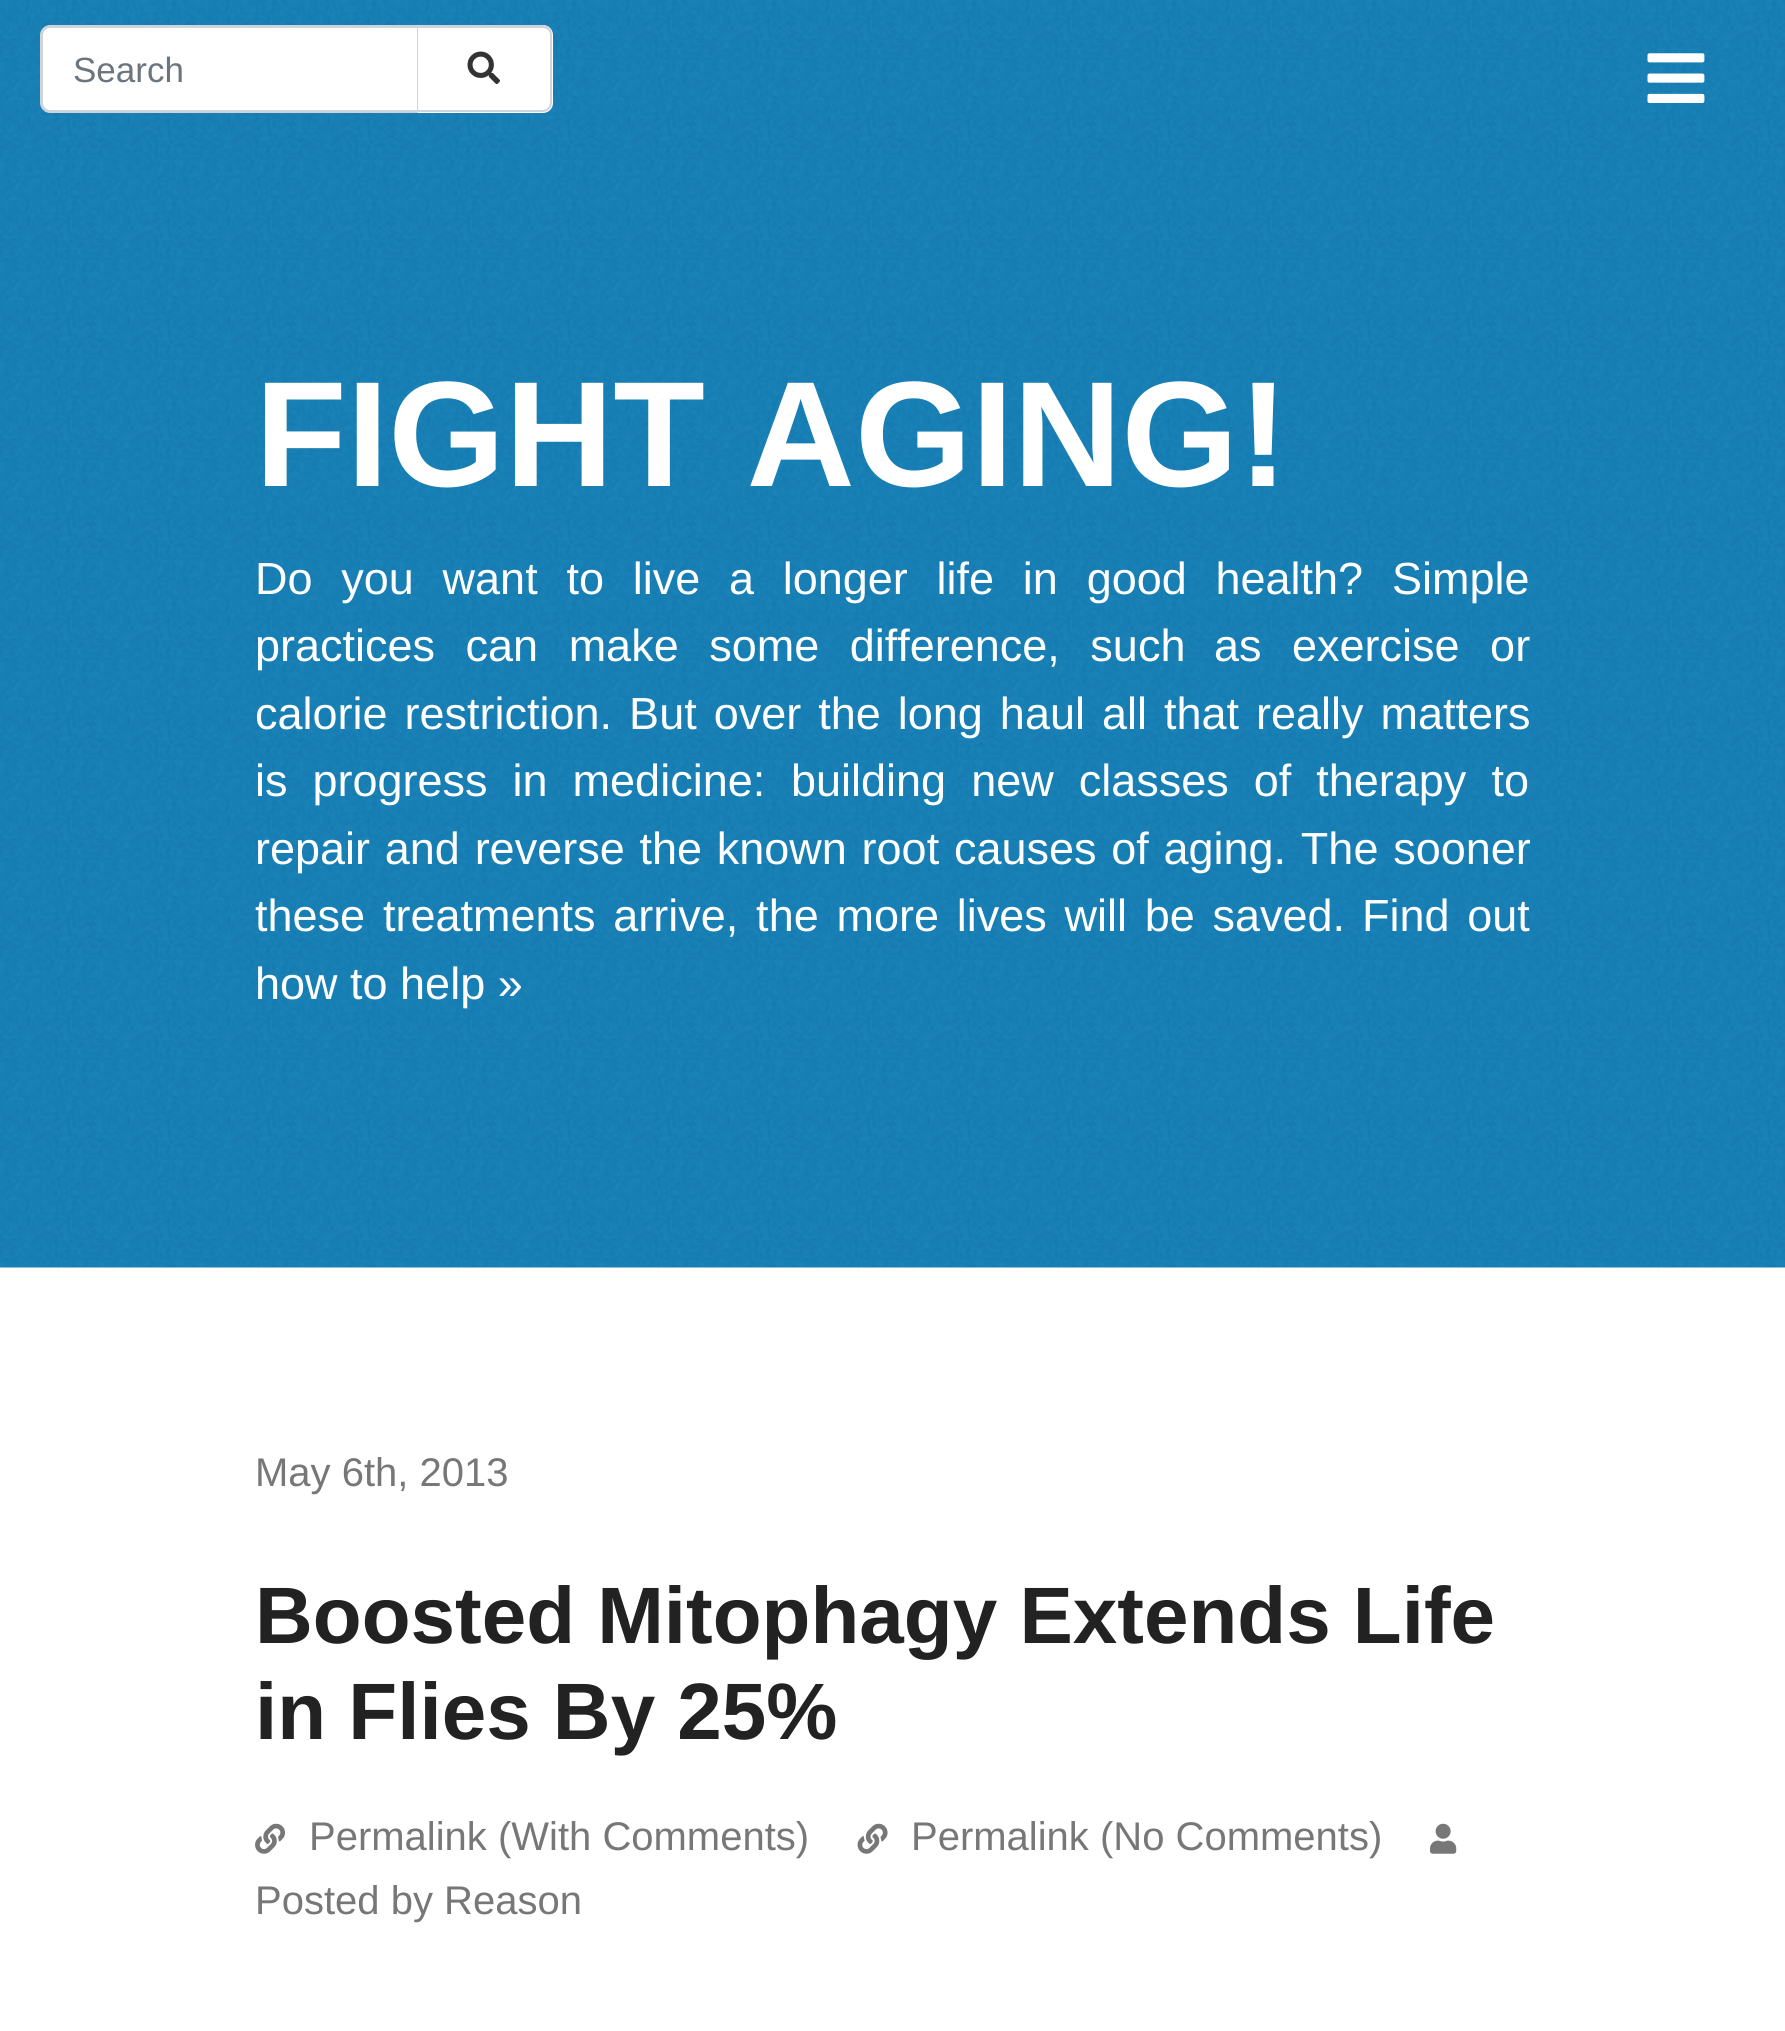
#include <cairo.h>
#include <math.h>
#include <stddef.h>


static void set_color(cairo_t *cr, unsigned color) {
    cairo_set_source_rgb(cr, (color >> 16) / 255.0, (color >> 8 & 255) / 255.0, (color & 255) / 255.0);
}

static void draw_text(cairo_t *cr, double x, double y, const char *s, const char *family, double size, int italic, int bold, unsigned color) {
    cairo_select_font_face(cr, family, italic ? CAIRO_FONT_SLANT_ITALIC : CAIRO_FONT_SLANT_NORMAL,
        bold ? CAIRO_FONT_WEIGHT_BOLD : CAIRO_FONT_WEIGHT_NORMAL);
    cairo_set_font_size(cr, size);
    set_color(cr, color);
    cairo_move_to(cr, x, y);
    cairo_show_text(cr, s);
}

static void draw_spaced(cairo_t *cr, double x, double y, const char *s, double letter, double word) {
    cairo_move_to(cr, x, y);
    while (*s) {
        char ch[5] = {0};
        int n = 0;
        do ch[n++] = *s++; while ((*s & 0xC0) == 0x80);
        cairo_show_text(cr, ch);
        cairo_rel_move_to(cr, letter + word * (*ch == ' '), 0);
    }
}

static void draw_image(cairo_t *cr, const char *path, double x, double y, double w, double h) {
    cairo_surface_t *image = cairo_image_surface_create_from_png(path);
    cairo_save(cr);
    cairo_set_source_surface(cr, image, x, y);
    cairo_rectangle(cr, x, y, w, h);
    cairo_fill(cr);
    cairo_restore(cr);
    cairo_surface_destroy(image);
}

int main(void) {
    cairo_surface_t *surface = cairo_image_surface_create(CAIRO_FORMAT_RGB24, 1785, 2031);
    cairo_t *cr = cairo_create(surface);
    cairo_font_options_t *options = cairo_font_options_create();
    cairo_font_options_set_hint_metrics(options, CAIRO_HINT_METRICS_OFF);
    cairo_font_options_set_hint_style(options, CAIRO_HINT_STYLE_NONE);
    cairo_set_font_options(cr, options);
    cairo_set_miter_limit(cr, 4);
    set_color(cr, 0xFFFFFF);
    cairo_paint(cr);
    draw_image(cr, "assets/img1.png", 0, 0, 1785, 1268);
    set_color(cr, 0xFFFFFF);
    cairo_new_path(cr);
    cairo_move_to(cr, 50, 26.5);
    cairo_line_to(cr, 418.5, 26.5);
    cairo_line_to(cr, 418.5, 111.5);
    cairo_line_to(cr, 50, 111.5);
    cairo_curve_to(cr, 45.5, 111.5, 41.5, 107.5, 41.5, 103);
    cairo_line_to(cr, 41.5, 35);
    cairo_curve_to(cr, 41.5, 30.5, 45.5, 26.5, 50, 26.5);
    cairo_close_path(cr);
    cairo_fill_preserve(cr);
    set_color(cr, 0xCED4DA);
    cairo_set_line_width(cr, 3);
    cairo_stroke(cr);
    draw_text(cr, 73, 82, "Search", "Liberation Sans", 35, 0, 0, 0x6C757D);
    set_color(cr, 0xFFFFFF);
    cairo_new_path(cr);
    cairo_move_to(cr, 418, 25);
    cairo_line_to(cr, 543, 25);
    cairo_curve_to(cr, 548.5, 25, 553, 29.5, 553, 35);
    cairo_line_to(cr, 553, 103);
    cairo_curve_to(cr, 553, 108.5, 548.5, 113, 543, 113);
    cairo_line_to(cr, 418, 113);
    cairo_close_path(cr);
    cairo_fill(cr);
    set_color(cr, 0xCED4DA);
    cairo_set_fill_rule(cr, CAIRO_FILL_RULE_EVEN_ODD);
    cairo_new_path(cr);
    cairo_move_to(cr, 418, 25);
    cairo_line_to(cr, 542, 25);
    cairo_curve_to(cr, 548, 25, 552, 29, 552, 35);
    cairo_line_to(cr, 552, 102);
    cairo_curve_to(cr, 552, 108, 548, 112, 542, 112);
    cairo_line_to(cr, 418, 112);
    cairo_close_path(cr);
    cairo_move_to(cr, 418, 28);
    cairo_line_to(cr, 542, 28);
    cairo_curve_to(cr, 547, 28, 550, 31, 550, 35);
    cairo_line_to(cr, 550, 102);
    cairo_curve_to(cr, 550, 107, 547, 110, 542, 110);
    cairo_line_to(cr, 418, 110);
    cairo_close_path(cr);
    cairo_fill(cr);
    draw_image(cr, "assets/img2.png", 467, 51, 33, 33);
    draw_image(cr, "assets/img3.png", 1647, 53, 58, 50);
    draw_text(cr, 255, 486, "FIGHT AGING!", "Liberation Sans", 150, 0, 1, 0xFFFFFF);
    cairo_select_font_face(cr, "Liberation Sans", CAIRO_FONT_SLANT_NORMAL, CAIRO_FONT_WEIGHT_NORMAL);
    cairo_set_font_size(cr, 45);
    draw_spaced(cr, 255, 594, "Do you want to live a longer life in good health? Simple", 0, 16.25);
    draw_spaced(cr, 255, 661, "practices can make some difference, such", 0, 18);
    draw_spaced(cr, 1214, 661, "as exercise or", 0, 18);
    draw_spaced(cr, 255, 729, "calorie restriction. But over the long haul all that really matters", 0, 4.5);
    draw_spaced(cr, 255, 796, "is progress in medicine:", 0, 12.5);
    draw_spaced(cr, 791, 796, "building new classes of therapy to", 0, 12.5);
    draw_spaced(cr, 255, 864, "repair and reverse the known root causes of aging. The sooner", 0, 2.25);
    draw_text(cr, 255, 931, "these", "Liberation Sans", 45, 0, 0, 0xFFFFFF);
    draw_spaced(cr, 383, 931, "treatments arrive, the more lives will be saved.", 0, 5.25);
    draw_spaced(cr, 1362, 931, "Find out", 0, 5.25);
    draw_text(cr, 255, 999, "how to help »", "Liberation Sans", 45, 0, 0, 0xFFFFFF);
    draw_text(cr, 255, 1486, "May 6th, 2013", "Liberation Sans", 40, 0, 0, 0x777777);
    draw_text(cr, 255, 1643, "Boosted Mitophagy Extends Life", "Liberation Sans", 80, 0, 1, 0x222222);
    draw_text(cr, 255, 1739, "in Flies By 25%", "Liberation Sans", 80, 0, 1, 0x222222);
    draw_image(cr, "assets/img4.png", 255, 1823, 31, 31);
    draw_text(cr, 309, 1850, "Permalink (With Comments)", "Liberation Sans", 40, 0, 0, 0x777777);
    draw_image(cr, "assets/img5.png", 857, 1823, 31, 31);
    draw_text(cr, 911, 1850, "Permalink (No Comments)", "Liberation Sans", 40, 0, 0, 0x777777);
    draw_image(cr, "assets/img6.png", 1430, 1823, 27, 31);
    draw_text(cr, 255, 1914, "Posted by Reason", "Liberation Sans", 40, 0, 0, 0x777777);
    cairo_surface_write_to_png(surface, "output.png");
    cairo_font_options_destroy(options);
    cairo_destroy(cr);
    cairo_surface_destroy(surface);
    return 0;
}
